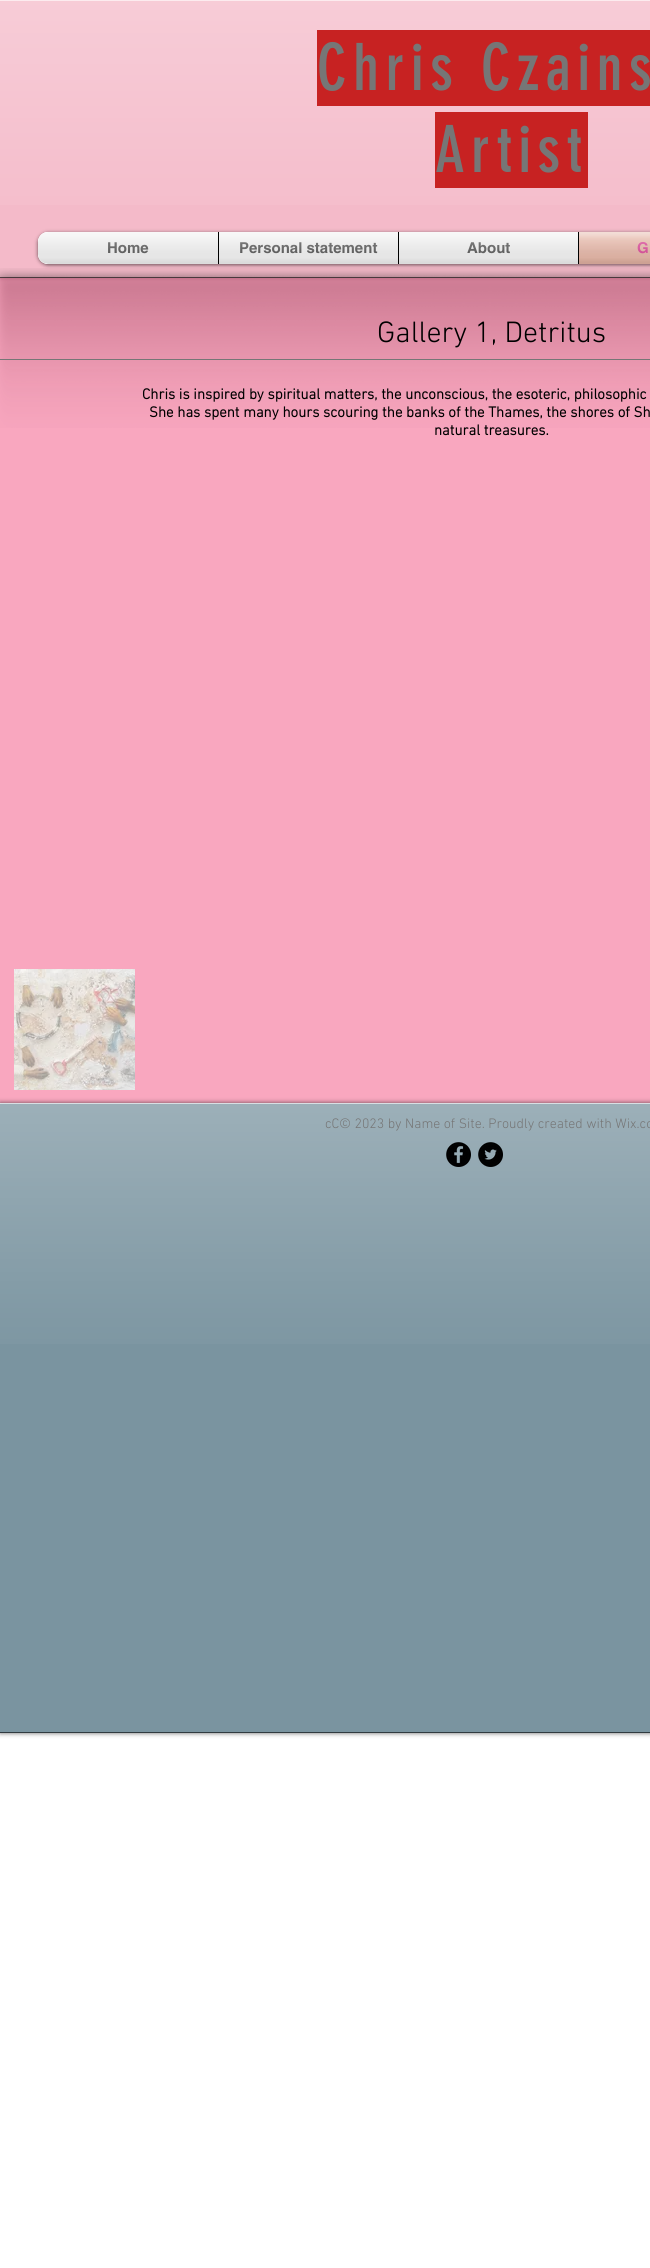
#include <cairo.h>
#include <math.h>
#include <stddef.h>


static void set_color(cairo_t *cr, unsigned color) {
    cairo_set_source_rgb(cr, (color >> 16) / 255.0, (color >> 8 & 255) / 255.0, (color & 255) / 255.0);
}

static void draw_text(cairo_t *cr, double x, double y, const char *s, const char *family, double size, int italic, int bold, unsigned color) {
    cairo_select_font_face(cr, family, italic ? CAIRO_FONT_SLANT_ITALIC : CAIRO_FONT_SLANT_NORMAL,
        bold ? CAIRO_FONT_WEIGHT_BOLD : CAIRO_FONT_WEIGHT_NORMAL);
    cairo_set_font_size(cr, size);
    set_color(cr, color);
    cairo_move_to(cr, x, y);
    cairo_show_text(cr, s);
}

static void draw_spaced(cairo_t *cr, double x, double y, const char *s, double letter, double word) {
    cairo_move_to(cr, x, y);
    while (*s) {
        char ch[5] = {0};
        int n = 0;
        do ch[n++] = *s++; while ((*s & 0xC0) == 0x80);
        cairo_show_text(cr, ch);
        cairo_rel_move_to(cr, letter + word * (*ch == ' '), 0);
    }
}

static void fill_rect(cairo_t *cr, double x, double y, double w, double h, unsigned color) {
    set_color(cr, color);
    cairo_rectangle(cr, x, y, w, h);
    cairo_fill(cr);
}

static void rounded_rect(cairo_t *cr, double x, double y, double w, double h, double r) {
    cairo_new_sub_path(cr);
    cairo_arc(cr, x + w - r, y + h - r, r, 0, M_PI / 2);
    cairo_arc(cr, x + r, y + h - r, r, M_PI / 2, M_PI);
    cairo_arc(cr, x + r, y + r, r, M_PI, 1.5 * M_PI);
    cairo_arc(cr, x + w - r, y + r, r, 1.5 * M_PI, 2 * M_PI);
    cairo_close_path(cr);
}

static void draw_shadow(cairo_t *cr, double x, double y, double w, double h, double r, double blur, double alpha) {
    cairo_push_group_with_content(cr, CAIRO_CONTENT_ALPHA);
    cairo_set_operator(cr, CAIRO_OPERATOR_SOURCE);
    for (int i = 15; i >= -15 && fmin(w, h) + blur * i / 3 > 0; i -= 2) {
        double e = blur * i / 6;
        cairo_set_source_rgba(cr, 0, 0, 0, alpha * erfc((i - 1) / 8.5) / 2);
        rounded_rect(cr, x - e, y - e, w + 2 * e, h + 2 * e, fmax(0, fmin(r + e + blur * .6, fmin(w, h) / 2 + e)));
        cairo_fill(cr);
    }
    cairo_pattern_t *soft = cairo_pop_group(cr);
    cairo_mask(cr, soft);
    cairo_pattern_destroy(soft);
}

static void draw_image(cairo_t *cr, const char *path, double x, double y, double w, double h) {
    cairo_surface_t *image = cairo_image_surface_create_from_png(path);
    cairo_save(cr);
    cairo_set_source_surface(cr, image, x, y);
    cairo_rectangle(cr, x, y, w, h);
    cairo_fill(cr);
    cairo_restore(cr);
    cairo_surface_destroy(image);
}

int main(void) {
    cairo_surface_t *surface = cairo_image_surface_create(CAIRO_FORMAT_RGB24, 650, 2268);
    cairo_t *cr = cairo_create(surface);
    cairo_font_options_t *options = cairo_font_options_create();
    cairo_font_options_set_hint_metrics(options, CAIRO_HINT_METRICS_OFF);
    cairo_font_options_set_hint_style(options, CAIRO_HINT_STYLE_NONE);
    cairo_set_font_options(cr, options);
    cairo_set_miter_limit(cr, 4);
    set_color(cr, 0xFFFFFF);
    cairo_paint(cr);
    fill_rect(cr, 0, 278, 650, 825, 0xF9A7BF);
    set_color(cr, 0x8B3951);
    draw_shadow(cr, 0, 0, 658, 278, 0, 2.5, 0.6);
    fill_rect(cr, 0, 1, 650, 276, 0xF4BAC9);
    draw_image(cr, "assets/img1.png", 0, 1, 650, 204);
    fill_rect(cr, 0, 277, 650, 1, 0x624A50);
    fill_rect(cr, 0, 0, 650, 1, 0xFCEBEF);
    fill_rect(cr, 317, 30, 333, 76, 0xC72222);
    cairo_select_font_face(cr, "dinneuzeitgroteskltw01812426", CAIRO_FONT_SLANT_NORMAL, CAIRO_FONT_WEIGHT_NORMAL);
    cairo_set_font_size(cr, 64);
    set_color(cr, 0x767676);
    draw_spaced(cr, 317, 90, "Chris Czains", 6.4, 0);
    fill_rect(cr, 435, 112, 153, 76, 0xC72222);
    set_color(cr, 0x767676);
    draw_spaced(cr, 435, 172, "Artist", 6.4, 0);
    set_color(cr, 0x000000);
    draw_shadow(cr, 38, 233, 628, 32, 10, 2, 0.6);
    set_color(cr, 0xFFFFFF);
    rounded_rect(cr, 38, 232, 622, 32, 10);
    cairo_fill(cr);
    draw_image(cr, "assets/img2.png", 38, 232, 9, 8);
    draw_image(cr, "assets/img3.png", 38, 232, 612, 32);
    cairo_new_path(cr);
    cairo_move_to(cr, 48, 232);
    cairo_line_to(cr, 218, 232);
    cairo_line_to(cr, 218, 264);
    cairo_line_to(cr, 48, 264);
    cairo_curve_to(cr, 42.5, 264, 38, 259.5, 38, 254);
    cairo_line_to(cr, 38, 242);
    cairo_curve_to(cr, 38, 236.5, 42.5, 232, 48, 232);
    cairo_close_path(cr);
    cairo_fill(cr);
    draw_text(cr, 107, 253, "Home", "helvetica", 15, 0, 1, 0x444444);
    draw_image(cr, "assets/img4.png", 108, 242, 41, 12);
    draw_image(cr, "assets/img5.png", 38, 232, 180, 32);
    fill_rect(cr, 219, 232, 179, 32, 0xFFFFFF);
    fill_rect(cr, 218, 232, 1, 32, 0x000000);
    draw_text(cr, 239, 253, "Personal statement", "helvetica", 15, 0, 1, 0x444444);
    draw_image(cr, "assets/img6.png", 240, 242, 138, 12);
    draw_image(cr, "assets/img7.png", 219, 232, 179, 32);
    fill_rect(cr, 399, 232, 179, 32, 0xFFFFFF);
    fill_rect(cr, 398, 232, 1, 32, 0x000000);
    draw_text(cr, 467, 253, "About", "helvetica", 15, 0, 1, 0x444444);
    draw_image(cr, "assets/img8.png", 467, 242, 43, 12);
    draw_image(cr, "assets/img9.png", 399, 232, 179, 32);
    cairo_set_source_rgba(cr, 0.953, 0.655, 0.561, 0.75);
    cairo_rectangle(cr, 579, 232, 71, 32);
    cairo_fill(cr);
    fill_rect(cr, 578, 232, 1, 32, 0x000000);
    draw_text(cr, 637, 253, "G", "helvetica", 15, 0, 1, 0xE33292);
    draw_image(cr, "assets/img10.png", 579, 232, 71, 32);
    draw_image(cr, "assets/img11.png", 579, 232, 71, 32);
    draw_image(cr, "assets/img12.png", 0, 268, 35, 160);
    draw_image(cr, "assets/img13.png", 35, 268, 615, 160);
    draw_text(cr, 377, 342, "Gallery 1, Detritus", "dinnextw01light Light", 30, 0, 0, 0x000000);
    fill_rect(cr, 0, 359, 650, 1, 0x767676);
    draw_text(cr, 142, 399, "Chris is inspired by spiritual matters, the unconscious, the esoteric, philosophic", "dinnextw01light", 15, 0, 1, 0x000000);
    draw_text(cr, 149, 417, "She has spent many hours scouring the banks of the Thames, the shores of Sh", "dinnextw01light", 15, 0, 1, 0x000000);
    draw_text(cr, 434, 435, "natural treasures.", "dinnextw01light", 15, 0, 1, 0x000000);
    draw_image(cr, "assets/img14.png", 14, 969, 121, 121);
    set_color(cr, 0x000000);
    draw_shadow(cr, 0, 1103, 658, 630, 0, 2.5, 0.6);
    fill_rect(cr, 0, 1104, 650, 628, 0x7A94A0);
    draw_image(cr, "assets/img15.png", 0, 1104, 650, 240);
    fill_rect(cr, 0, 1732, 650, 1, 0x313B40);
    fill_rect(cr, 0, 1103, 650, 1, 0xD8DFE3);
    draw_text(cr, 325, 1128, "cC© 2023 by Name of Site. Proudly created with Wix.co", "dinnextw01light Light", 14, 0, 0, 0x767676);
    draw_image(cr, "assets/img16.png", 446, 1142, 25, 25);
    draw_image(cr, "assets/img17.png", 478, 1142, 25, 25);
    cairo_surface_write_to_png(surface, "output.png");
    cairo_font_options_destroy(options);
    cairo_destroy(cr);
    cairo_surface_destroy(surface);
    return 0;
}
